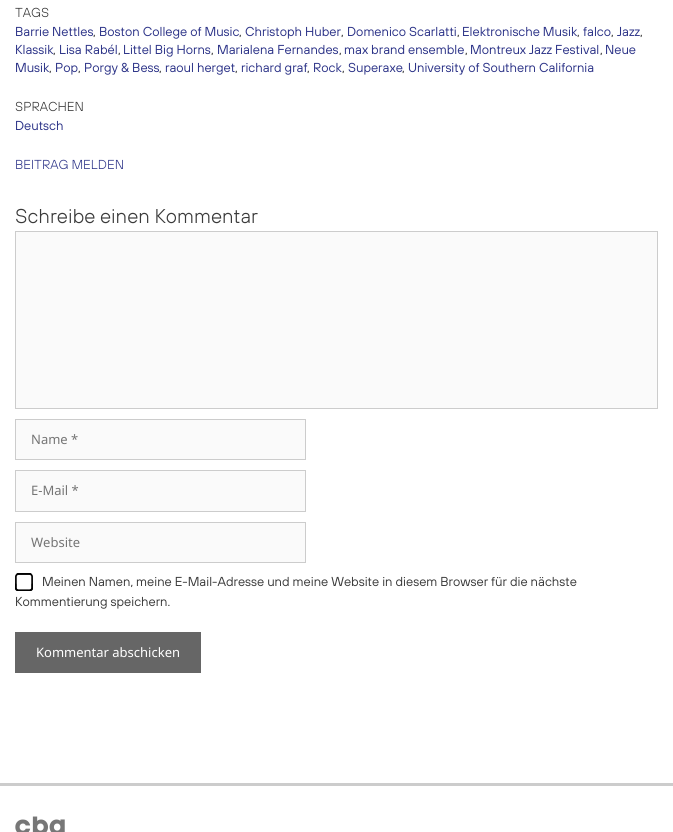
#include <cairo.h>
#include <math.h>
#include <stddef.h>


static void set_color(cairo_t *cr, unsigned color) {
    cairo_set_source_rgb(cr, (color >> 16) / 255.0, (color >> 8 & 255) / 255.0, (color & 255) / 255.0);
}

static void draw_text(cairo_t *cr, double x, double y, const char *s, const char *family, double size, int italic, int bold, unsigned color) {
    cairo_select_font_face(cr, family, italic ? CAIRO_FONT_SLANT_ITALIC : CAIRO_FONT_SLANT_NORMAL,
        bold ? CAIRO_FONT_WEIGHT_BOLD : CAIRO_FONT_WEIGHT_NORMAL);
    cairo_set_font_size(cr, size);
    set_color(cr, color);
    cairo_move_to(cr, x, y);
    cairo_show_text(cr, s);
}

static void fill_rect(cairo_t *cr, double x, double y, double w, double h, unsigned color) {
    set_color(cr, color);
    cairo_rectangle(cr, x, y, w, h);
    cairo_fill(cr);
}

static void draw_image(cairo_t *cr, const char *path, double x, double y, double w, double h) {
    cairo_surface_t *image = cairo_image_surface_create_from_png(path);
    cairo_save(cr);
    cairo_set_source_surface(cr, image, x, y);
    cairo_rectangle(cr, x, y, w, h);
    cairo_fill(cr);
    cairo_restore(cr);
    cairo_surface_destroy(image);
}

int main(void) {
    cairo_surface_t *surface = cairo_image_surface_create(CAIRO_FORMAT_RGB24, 673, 832);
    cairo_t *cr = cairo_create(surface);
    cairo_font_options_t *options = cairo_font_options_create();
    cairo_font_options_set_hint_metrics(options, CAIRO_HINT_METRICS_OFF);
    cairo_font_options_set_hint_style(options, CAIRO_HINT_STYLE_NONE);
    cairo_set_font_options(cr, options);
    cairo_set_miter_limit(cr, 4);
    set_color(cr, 0xFFFFFF);
    cairo_paint(cr);
    draw_text(cr, 15, 17, "TAGS", "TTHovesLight", 13, 0, 0, 0x333333);
    draw_text(cr, 15, 36, "Barrie Nettles", "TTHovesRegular", 13, 0, 0, 0x2B3287);
    draw_text(cr, 93, 36, ",", "TTHovesRegular", 13, 0, 0, 0x333333);
    draw_text(cr, 99, 36, "Boston College of Music", "TTHovesRegular", 13, 0, 0, 0x2B3287);
    draw_text(cr, 239, 36, ",", "TTHovesRegular", 13, 0, 0, 0x333333);
    draw_text(cr, 245, 36, "Christoph Huber", "TTHovesRegular", 13, 0, 0, 0x2B3287);
    draw_text(cr, 341, 36, ",", "TTHovesRegular", 13, 0, 0, 0x333333);
    draw_text(cr, 347, 36, "Domenico Scarlatti", "TTHovesRegular", 13, 0, 0, 0x2B3287);
    draw_text(cr, 457, 36, ",", "TTHovesRegular", 13, 0, 0, 0x333333);
    draw_text(cr, 462, 36, "Elektronische Musik", "TTHovesRegular", 13, 0, 0, 0x2B3287);
    draw_text(cr, 577, 36, ",", "TTHovesRegular", 13, 0, 0, 0x333333);
    draw_text(cr, 583, 36, "falco", "TTHovesRegular", 13, 0, 0, 0x2B3287);
    draw_text(cr, 611, 36, ",", "TTHovesRegular", 13, 0, 0, 0x333333);
    draw_text(cr, 617, 36, "Jazz", "TTHovesRegular", 13, 0, 0, 0x2B3287);
    draw_text(cr, 640, 36, ",", "TTHovesRegular", 13, 0, 0, 0x333333);
    draw_text(cr, 15, 54, "Klassik", "TTHovesRegular", 13, 0, 0, 0x2B3287);
    draw_text(cr, 53, 54, ",", "TTHovesRegular", 13, 0, 0, 0x333333);
    draw_text(cr, 59, 54, "Lisa Rabél", "TTHovesRegular", 13, 0, 0, 0x2B3287);
    draw_text(cr, 118, 54, ",", "TTHovesRegular", 13, 0, 0, 0x333333);
    draw_text(cr, 123, 54, "Littel Big Horns", "TTHovesRegular", 13, 0, 0, 0x2B3287);
    draw_text(cr, 211, 54, ",", "TTHovesRegular", 13, 0, 0, 0x333333);
    draw_text(cr, 217, 54, "Marialena Fernandes", "TTHovesRegular", 13, 0, 0, 0x2B3287);
    draw_text(cr, 339, 54, ",", "TTHovesRegular", 13, 0, 0, 0x333333);
    draw_text(cr, 344, 54, "max brand ensemble", "TTHovesRegular", 13, 0, 0, 0x2B3287);
    draw_text(cr, 465, 54, ",", "TTHovesRegular", 13, 0, 0, 0x333333);
    draw_text(cr, 470, 54, "Montreux Jazz Festival", "TTHovesRegular", 13, 0, 0, 0x2B3287);
    draw_text(cr, 600, 54, ",", "TTHovesRegular", 13, 0, 0, 0x333333);
    draw_text(cr, 605, 54, "Neue", "TTHovesRegular", 13, 0, 0, 0x2B3287);
    draw_text(cr, 15, 72, "Musik", "TTHovesRegular", 13, 0, 0, 0x2B3287);
    draw_text(cr, 49, 72, ",", "TTHovesRegular", 13, 0, 0, 0x333333);
    draw_text(cr, 55, 72, "Pop", "TTHovesRegular", 13, 0, 0, 0x2B3287);
    draw_text(cr, 78, 72, ",", "TTHovesRegular", 13, 0, 0, 0x333333);
    draw_text(cr, 84, 72, "Porgy & Bess", "TTHovesRegular", 13, 0, 0, 0x2B3287);
    draw_text(cr, 159, 72, ",", "TTHovesRegular", 13, 0, 0, 0x333333);
    draw_text(cr, 165, 72, "raoul herget", "TTHovesRegular", 13, 0, 0, 0x2B3287);
    draw_text(cr, 235, 72, ",", "TTHovesRegular", 13, 0, 0, 0x333333);
    draw_text(cr, 241, 72, "richard graf", "TTHovesRegular", 13, 0, 0, 0x2B3287);
    draw_text(cr, 307, 72, ",", "TTHovesRegular", 13, 0, 0, 0x333333);
    draw_text(cr, 313, 72, "Rock", "TTHovesRegular", 13, 0, 0, 0x2B3287);
    draw_text(cr, 342, 72, ",", "TTHovesRegular", 13, 0, 0, 0x333333);
    draw_text(cr, 348, 72, "Superaxe", "TTHovesRegular", 13, 0, 0, 0x2B3287);
    draw_text(cr, 402, 72, ",", "TTHovesRegular", 13, 0, 0, 0x333333);
    draw_text(cr, 408, 72, "University of Southern California", "TTHovesRegular", 13, 0, 0, 0x2B3287);
    draw_text(cr, 15, 111, "SPRACHEN", "TTHovesLight", 13, 0, 0, 0x333333);
    draw_text(cr, 15, 130, "Deutsch", "TTHovesRegular", 13, 0, 0, 0x2B3287);
    draw_text(cr, 15, 169, "BEITRAG MELDEN", "TTHovesLight", 13, 0, 0, 0x2B3287);
    draw_text(cr, 15, 223, "Schreibe einen Kommentar", "TTHovesLight", 20, 0, 0, 0x3A3A3A);
    set_color(cr, 0xFAFAFA);
    cairo_rectangle(cr, 15.5, 231.5, 642, 177);
    cairo_fill_preserve(cr);
    set_color(cr, 0xCCCCCC);
    cairo_set_line_width(cr, 1);
    cairo_stroke(cr);
    set_color(cr, 0xFAFAFA);
    cairo_rectangle(cr, 15.5, 419.5, 290, 40);
    cairo_fill_preserve(cr);
    set_color(cr, 0xCCCCCC);
    cairo_stroke(cr);
    draw_text(cr, 31, 444, "Name *", "Noto Sans", 13, 0, 0, 0x757575);
    set_color(cr, 0xFAFAFA);
    cairo_rectangle(cr, 15.5, 470.5, 290, 41);
    cairo_fill_preserve(cr);
    set_color(cr, 0xCCCCCC);
    cairo_stroke(cr);
    draw_text(cr, 31, 495, "E-Mail *", "Noto Sans", 13, 0, 0, 0x757575);
    set_color(cr, 0xFAFAFA);
    cairo_rectangle(cr, 15.5, 522.5, 290, 40);
    cairo_fill_preserve(cr);
    set_color(cr, 0xCCCCCC);
    cairo_stroke(cr);
    draw_text(cr, 31, 547, "Website", "Noto Sans", 13, 0, 0, 0x757575);
    draw_image(cr, "assets/img1.png", 15, 573, 18, 18);
    draw_text(cr, 42, 586, "Meinen Namen, meine E-Mail-Adresse und meine Website in diesem Browser für die nächste", "TTHovesRegular", 13, 0, 0, 0x3A3A3A);
    draw_text(cr, 15, 606, "Kommentierung speichern.", "TTHovesRegular", 13, 0, 0, 0x3A3A3A);
    fill_rect(cr, 15, 632, 186, 41, 0x666666);
    draw_text(cr, 36, 657, "Kommentar abschicken", "Noto Sans", 13, 0, 0, 0xFFFFFF);
    fill_rect(cr, 0, 783, 673, 3, 0xCCCCCC);
    draw_image(cr, "assets/img2.png", 15, 816, 50, 16);
    cairo_surface_write_to_png(surface, "output.png");
    cairo_font_options_destroy(options);
    cairo_destroy(cr);
    cairo_surface_destroy(surface);
    return 0;
}
